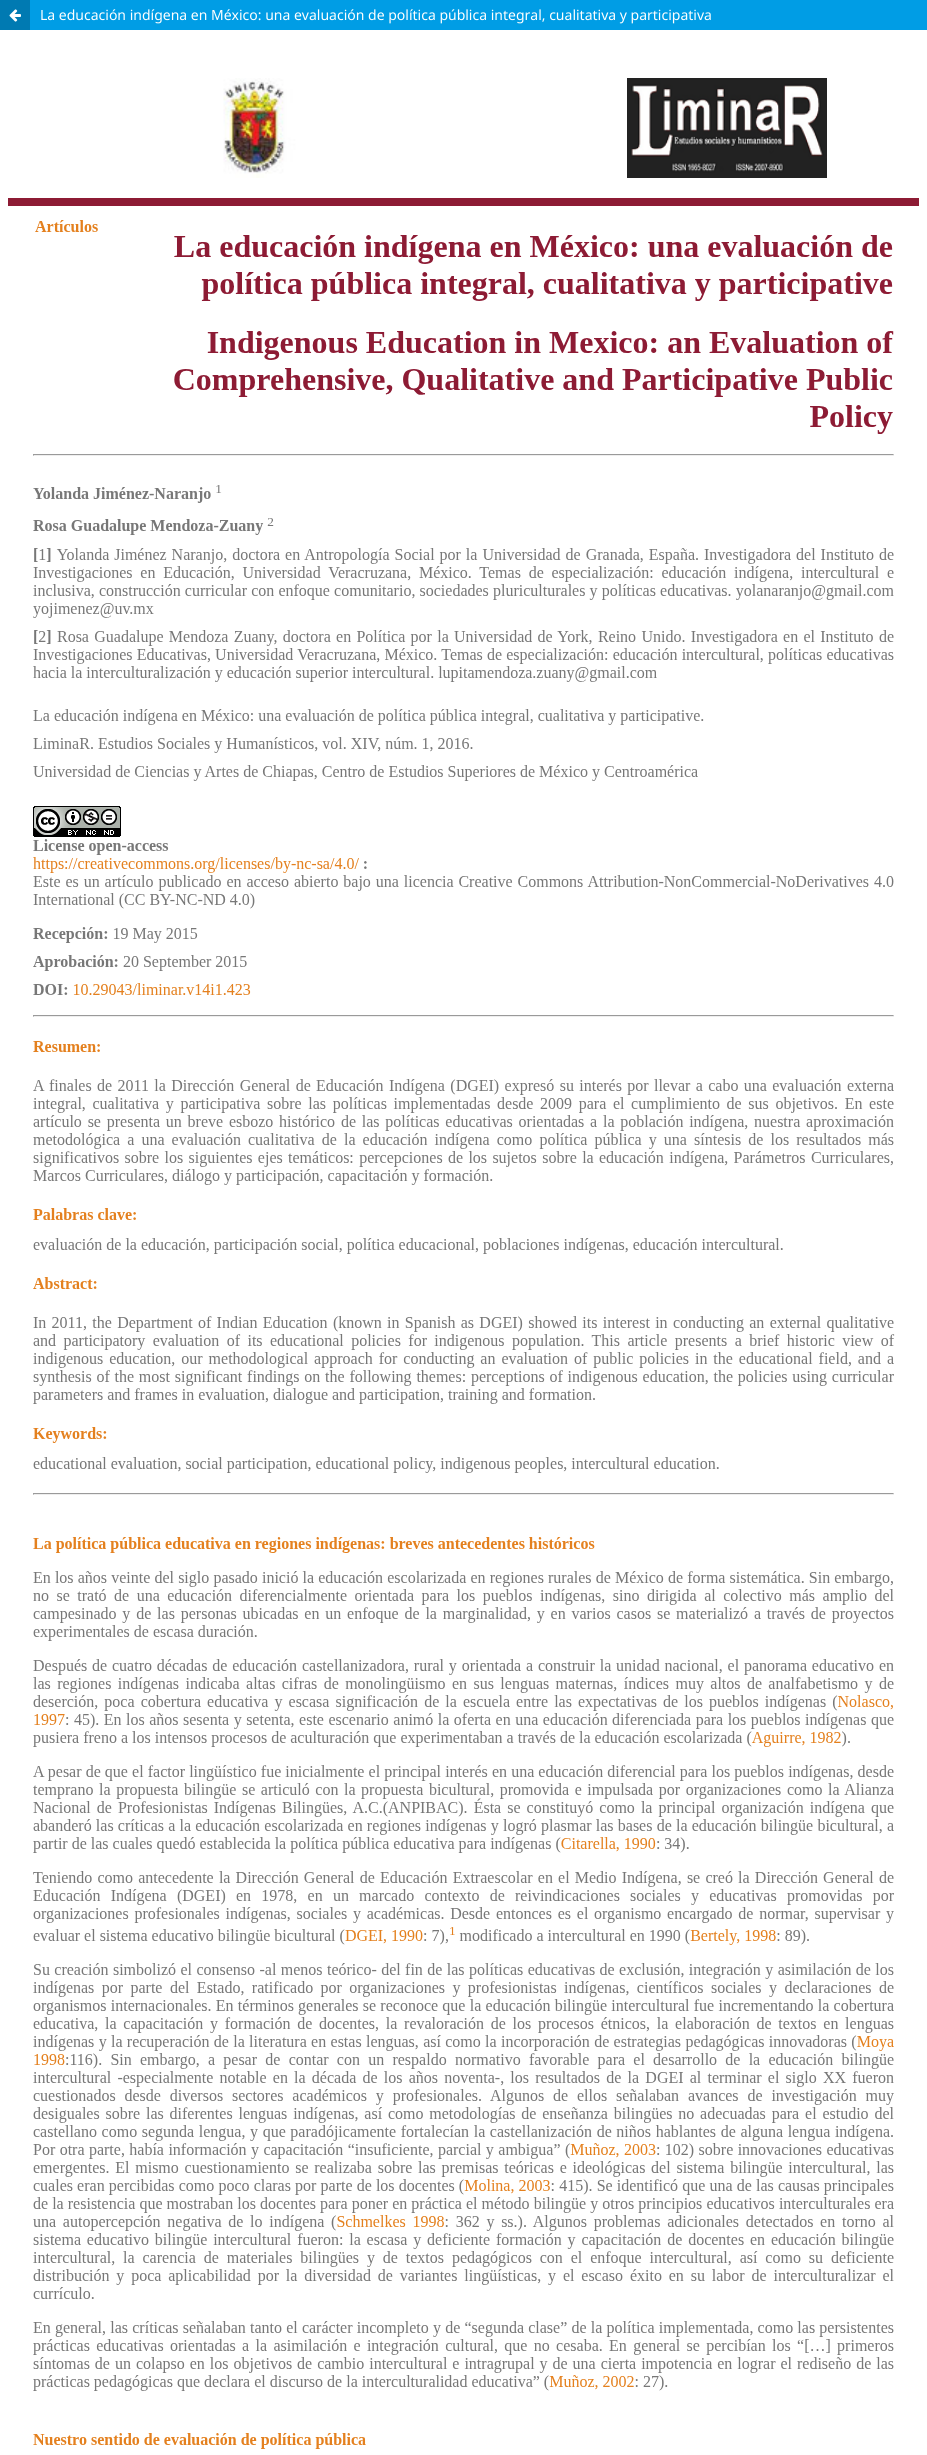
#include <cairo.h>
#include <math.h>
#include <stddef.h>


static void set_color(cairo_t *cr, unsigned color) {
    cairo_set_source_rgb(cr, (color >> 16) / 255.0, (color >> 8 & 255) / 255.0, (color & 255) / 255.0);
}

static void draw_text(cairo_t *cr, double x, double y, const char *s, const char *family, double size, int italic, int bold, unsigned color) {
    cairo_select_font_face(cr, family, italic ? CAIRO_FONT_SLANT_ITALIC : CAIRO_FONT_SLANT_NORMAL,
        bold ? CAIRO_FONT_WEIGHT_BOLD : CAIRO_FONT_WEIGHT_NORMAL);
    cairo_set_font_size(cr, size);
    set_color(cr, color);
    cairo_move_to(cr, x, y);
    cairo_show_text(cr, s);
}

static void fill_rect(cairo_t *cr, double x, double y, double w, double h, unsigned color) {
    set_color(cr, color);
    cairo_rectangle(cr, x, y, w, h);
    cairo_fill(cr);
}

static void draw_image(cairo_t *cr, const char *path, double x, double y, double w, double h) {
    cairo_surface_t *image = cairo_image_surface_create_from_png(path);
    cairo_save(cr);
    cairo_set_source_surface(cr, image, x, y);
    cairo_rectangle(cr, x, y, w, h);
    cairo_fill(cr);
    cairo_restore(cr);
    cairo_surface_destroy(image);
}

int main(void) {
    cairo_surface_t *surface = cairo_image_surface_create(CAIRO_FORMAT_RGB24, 927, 2455);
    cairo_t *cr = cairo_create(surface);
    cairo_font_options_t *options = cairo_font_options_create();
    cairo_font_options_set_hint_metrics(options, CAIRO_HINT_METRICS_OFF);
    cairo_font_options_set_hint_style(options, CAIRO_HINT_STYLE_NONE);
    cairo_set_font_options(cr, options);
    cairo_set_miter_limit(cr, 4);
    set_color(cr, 0xFFFFFF);
    cairo_paint(cr);
    fill_rect(cr, 30, 0, 897, 30, 0x009DE5);
    fill_rect(cr, 0, 0, 30, 30, 0x007AB2);
    draw_image(cr, "assets/img1.png", 9, 9, 12, 13);
    draw_text(cr, 40, 20, "La educación indígena en México: una evaluación de política pública integral, cualitativa y participativa", "Noto Sans", 14, 0, 0, 0xFFFFFF);
    draw_image(cr, "assets/img2.png", 8, 78, 911, 2371);
    cairo_surface_write_to_png(surface, "output.png");
    cairo_font_options_destroy(options);
    cairo_destroy(cr);
    cairo_surface_destroy(surface);
    return 0;
}
